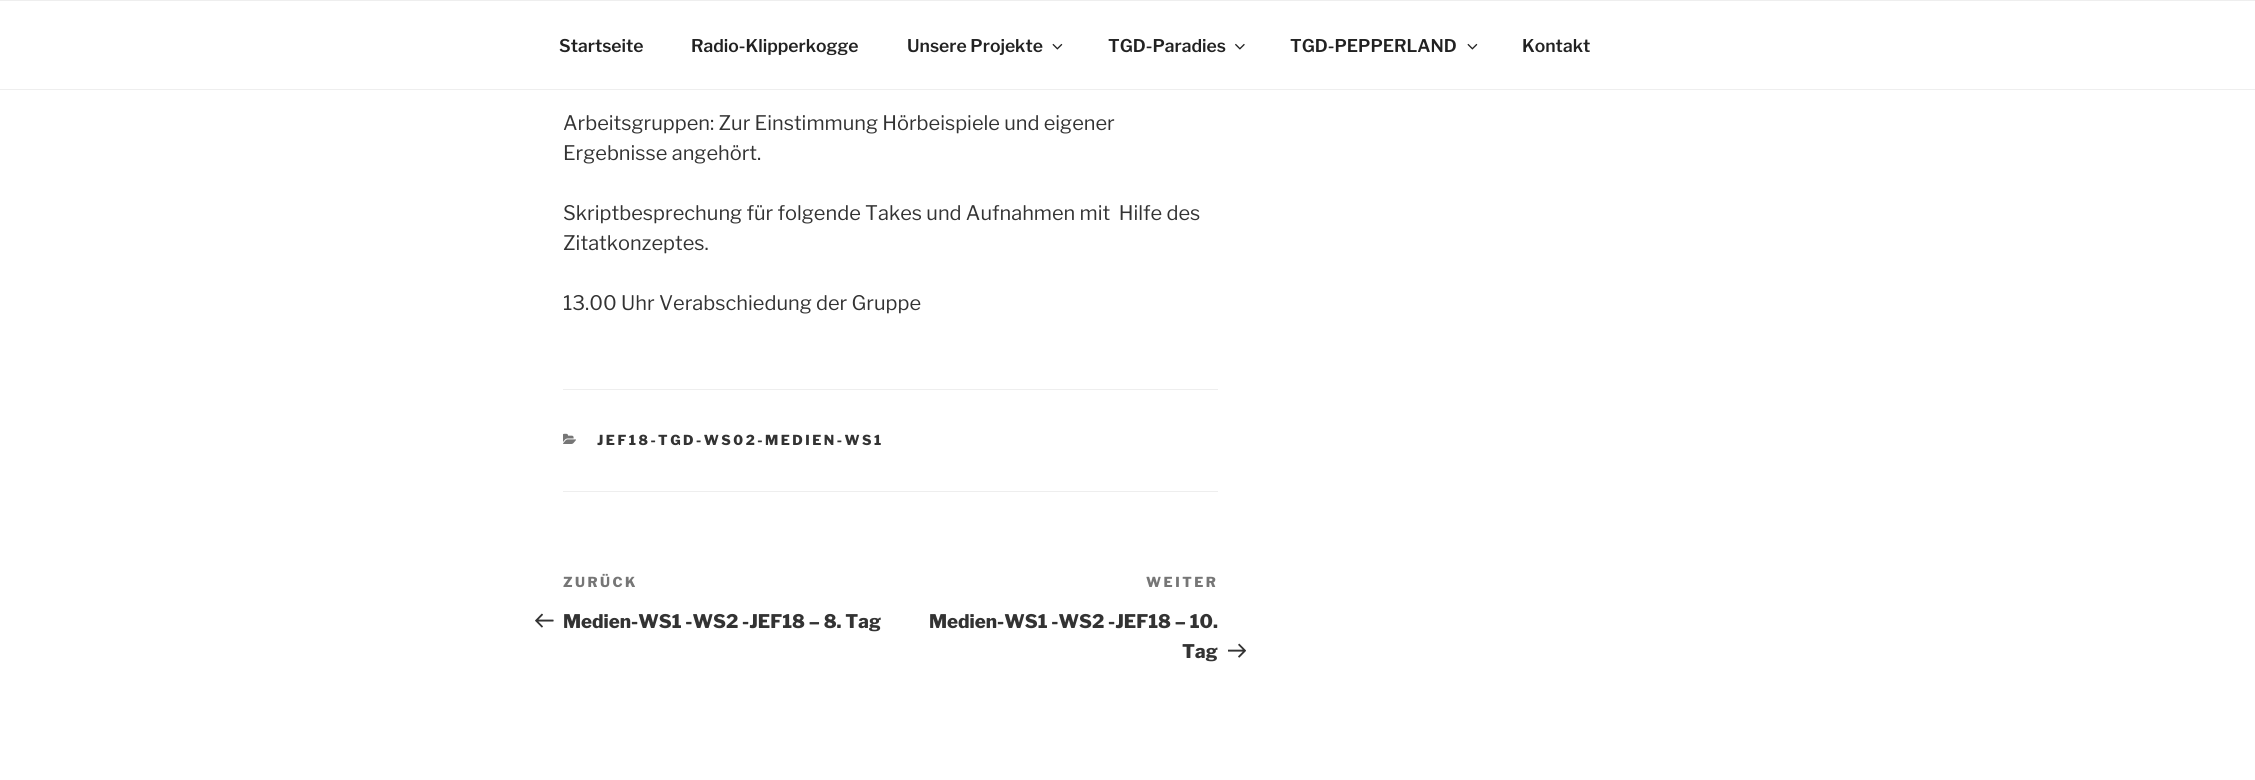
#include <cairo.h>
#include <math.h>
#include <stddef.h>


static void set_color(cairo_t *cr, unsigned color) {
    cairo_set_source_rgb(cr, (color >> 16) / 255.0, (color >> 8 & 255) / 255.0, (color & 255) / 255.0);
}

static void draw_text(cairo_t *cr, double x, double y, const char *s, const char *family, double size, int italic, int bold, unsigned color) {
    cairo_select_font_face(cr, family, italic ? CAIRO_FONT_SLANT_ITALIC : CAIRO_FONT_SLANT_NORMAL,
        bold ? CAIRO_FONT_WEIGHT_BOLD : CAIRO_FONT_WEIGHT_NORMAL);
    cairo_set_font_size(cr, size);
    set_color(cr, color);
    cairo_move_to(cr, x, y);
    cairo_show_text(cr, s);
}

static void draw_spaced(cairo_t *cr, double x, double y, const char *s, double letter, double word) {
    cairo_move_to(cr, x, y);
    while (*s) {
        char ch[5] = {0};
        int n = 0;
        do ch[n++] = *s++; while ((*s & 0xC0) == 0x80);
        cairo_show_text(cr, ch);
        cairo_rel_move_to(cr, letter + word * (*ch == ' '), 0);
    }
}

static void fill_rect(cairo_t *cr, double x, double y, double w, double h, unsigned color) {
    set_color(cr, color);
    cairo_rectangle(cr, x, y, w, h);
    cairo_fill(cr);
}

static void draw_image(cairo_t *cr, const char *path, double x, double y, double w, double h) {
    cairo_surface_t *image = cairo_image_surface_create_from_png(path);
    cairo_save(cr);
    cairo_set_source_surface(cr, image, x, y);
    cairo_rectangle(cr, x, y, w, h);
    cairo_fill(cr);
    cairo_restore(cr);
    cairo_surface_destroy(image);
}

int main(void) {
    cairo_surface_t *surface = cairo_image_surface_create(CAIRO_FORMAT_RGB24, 2255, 780);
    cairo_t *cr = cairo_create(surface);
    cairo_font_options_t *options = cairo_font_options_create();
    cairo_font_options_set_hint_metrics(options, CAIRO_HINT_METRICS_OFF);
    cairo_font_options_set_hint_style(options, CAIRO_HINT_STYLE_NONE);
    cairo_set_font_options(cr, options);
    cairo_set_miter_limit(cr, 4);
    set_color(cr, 0xFFFFFF);
    cairo_paint(cr);
    fill_rect(cr, 0, 0, 2255, 1, 0xEEEEEE);
    fill_rect(cr, 0, 89, 2255, 1, 0xEEEEEE);
    draw_text(cr, 559, 52, "Startseite", "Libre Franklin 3 Thin", 17.5, 0, 0, 0x222222);
    draw_text(cr, 691, 52, "Radio-Klipperkogge", "Libre Franklin 3 Thin", 17.5, 0, 0, 0x222222);
    draw_text(cr, 907, 52, "Unsere Projekte", "Libre Franklin 3 Thin", 17.5, 0, 0, 0x222222);
    draw_image(cr, "assets/img1.png", 1052, 43, 11, 7);
    draw_text(cr, 1108, 52, "TGD-Paradies", "Libre Franklin 3 Thin", 17.5, 0, 0, 0x222222);
    draw_image(cr, "assets/img2.png", 1235, 43, 10, 7);
    draw_text(cr, 1290, 52, "TGD-PEPPERLAND", "Libre Franklin 3 Thin", 17.5, 0, 0, 0x222222);
    draw_image(cr, "assets/img1.png", 1467, 43, 11, 7);
    draw_text(cr, 1522, 52, "Kontakt", "Libre Franklin 3 Thin", 17.5, 0, 0, 0x222222);
    draw_text(cr, 563, 130, "Arbeitsgruppen: Zur Einstimmung Hörbeispiele und eigener", "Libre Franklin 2 Thin", 20, 0, 0, 0x333333);
    draw_text(cr, 563, 160, "Ergebnisse angehört.", "Libre Franklin 2 Thin", 20, 0, 0, 0x333333);
    draw_text(cr, 563, 220, "Skriptbesprechung für folgende Takes und Aufnahmen mit  Hilfe des", "Libre Franklin 2 Thin", 20, 0, 0, 0x333333);
    draw_text(cr, 563, 250, "Zitatkonzeptes.", "Libre Franklin 2 Thin", 20, 0, 0, 0x333333);
    draw_text(cr, 563, 310, "13.00 Uhr Verabschiedung der Gruppe", "Libre Franklin 2 Thin", 20, 0, 0, 0x333333);
    fill_rect(cr, 563, 389, 655, 1, 0xEEEEEE);
    fill_rect(cr, 563, 491, 655, 1, 0xEEEEEE);
    draw_image(cr, "assets/img3.png", 563, 433, 13, 11);
    cairo_select_font_face(cr, "Libre Franklin Thin", CAIRO_FONT_SLANT_NORMAL, CAIRO_FONT_WEIGHT_NORMAL);
    cairo_set_font_size(cr, 13.75);
    set_color(cr, 0x333333);
    draw_spaced(cr, 597, 445, "JEF18-TGD-WS02-MEDIEN-WS1", 2.5, 0);
    set_color(cr, 0x767676);
    draw_spaced(cr, 563, 587, "ZURÜCK", 2.5, 0);
    draw_image(cr, "assets/img4.png", 535, 613, 19, 15);
    draw_text(cr, 563, 628, "Medien-WS1 -WS2 -JEF18 – 8. Tag", "Libre Franklin Thin", 18.75, 0, 0, 0x333333);
    cairo_set_font_size(cr, 13.75);
    set_color(cr, 0x767676);
    draw_spaced(cr, 1146, 587, "WEITER", 2.5, 0);
    draw_text(cr, 929, 628, "Medien-WS1 -WS2 -JEF18 – 10.", "Libre Franklin Thin", 18.75, 0, 0, 0x333333);
    draw_text(cr, 1182, 658, "Tag", "Libre Franklin Thin", 18.75, 0, 0, 0x333333);
    draw_image(cr, "assets/img5.png", 1228, 643, 18, 15);
    cairo_surface_write_to_png(surface, "output.png");
    cairo_font_options_destroy(options);
    cairo_destroy(cr);
    cairo_surface_destroy(surface);
    return 0;
}
